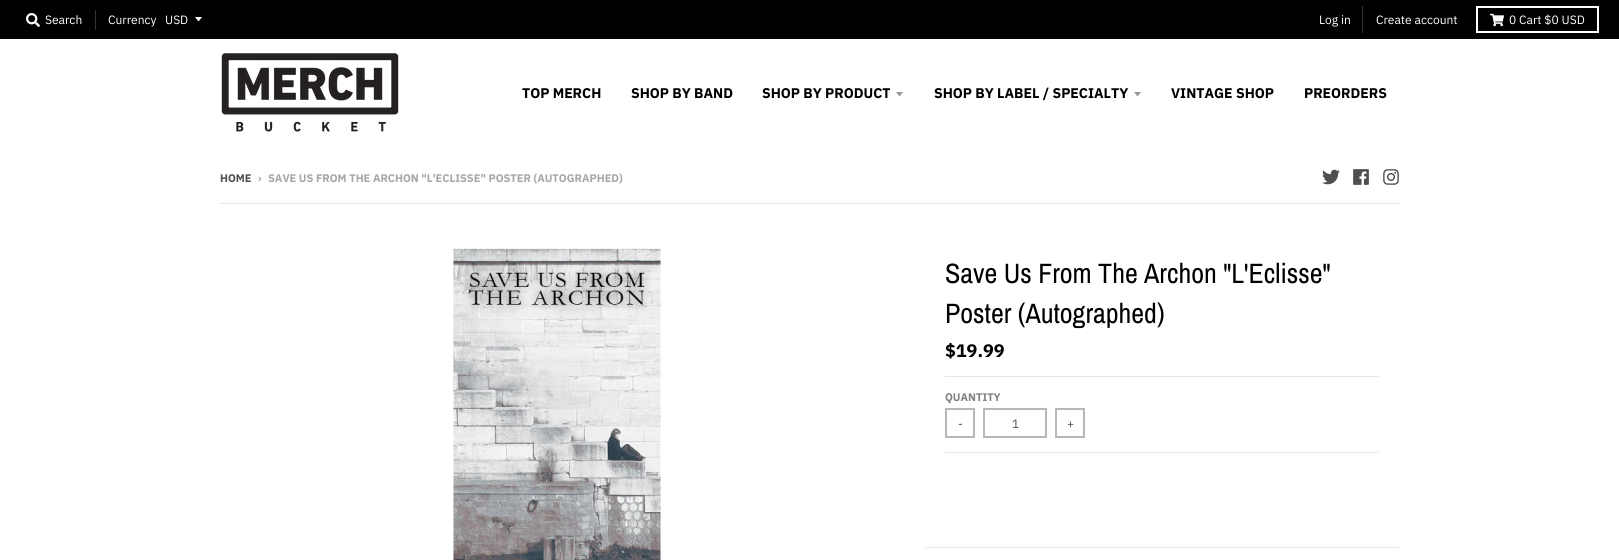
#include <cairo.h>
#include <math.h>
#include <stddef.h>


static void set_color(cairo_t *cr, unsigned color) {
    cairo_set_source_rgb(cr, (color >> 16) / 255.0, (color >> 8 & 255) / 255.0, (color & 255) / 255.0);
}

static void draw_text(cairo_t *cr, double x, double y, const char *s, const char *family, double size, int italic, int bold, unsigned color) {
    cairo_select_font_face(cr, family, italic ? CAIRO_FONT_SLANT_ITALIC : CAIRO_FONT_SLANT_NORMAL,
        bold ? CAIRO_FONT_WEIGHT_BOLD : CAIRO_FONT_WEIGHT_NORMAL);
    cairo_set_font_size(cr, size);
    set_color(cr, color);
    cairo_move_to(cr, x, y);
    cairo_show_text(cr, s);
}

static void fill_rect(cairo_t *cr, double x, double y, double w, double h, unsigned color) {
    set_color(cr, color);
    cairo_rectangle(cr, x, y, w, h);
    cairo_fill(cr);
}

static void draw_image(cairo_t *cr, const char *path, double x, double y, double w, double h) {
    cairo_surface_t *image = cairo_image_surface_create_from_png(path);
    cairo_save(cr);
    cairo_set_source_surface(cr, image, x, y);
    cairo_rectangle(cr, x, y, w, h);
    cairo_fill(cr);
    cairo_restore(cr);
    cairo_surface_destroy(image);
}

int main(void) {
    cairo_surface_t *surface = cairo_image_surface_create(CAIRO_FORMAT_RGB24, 1619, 560);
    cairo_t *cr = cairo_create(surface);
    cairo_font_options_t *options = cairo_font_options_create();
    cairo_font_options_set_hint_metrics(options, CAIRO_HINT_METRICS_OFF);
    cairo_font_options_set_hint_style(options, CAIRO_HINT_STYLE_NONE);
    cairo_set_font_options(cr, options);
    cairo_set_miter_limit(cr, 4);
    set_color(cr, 0xFFFFFF);
    cairo_paint(cr);
    fill_rect(cr, 0, 0, 1619, 39, 0x000000);
    draw_image(cr, "assets/img1.png", 26, 13, 14, 14);
    draw_text(cr, 45, 24, "Search", "IBM Plex Sans", 12, 0, 0, 0xFFFFFF);
    fill_rect(cr, 95, 10, 1, 20, 0x333333);
    draw_text(cr, 108, 24, "Currency", "IBM Plex Sans", 12, 0, 0, 0xFFFFFF);
    cairo_new_path(cr);
    cairo_move_to(cr, 195, 17);
    cairo_curve_to(cr, 199.5, 22.5, 197.5, 22.5, 202, 17);
    cairo_close_path(cr);
    cairo_fill(cr);
    draw_text(cr, 165, 24, "USD", "IBM Plex Sans", 12, 0, 0, 0xFFFFFF);
    fill_rect(cr, 1362, 6, 1, 27, 0x333333);
    draw_text(cr, 1319, 24, "Log in", "IBM Plex Sans", 12, 0, 0, 0xFFFFFF);
    draw_text(cr, 1376, 24, "Create account", "IBM Plex Sans", 12, 0, 0, 0xFFFFFF);
    cairo_rectangle(cr, 1477, 7, 121, 25);
    cairo_stroke(cr);
    draw_image(cr, "assets/img2.png", 1490, 13, 14, 14);
    draw_text(cr, 1509, 24, "0 Cart $0 USD", "IBM Plex Sans", 12, 0, 0, 0xFFFFFF);
    draw_image(cr, "assets/img3.png", 221, 53, 178, 79);
    draw_text(cr, 522, 98, "TOP MERCH", "IBM Plex Sans", 14, 0, 1, 0x000000);
    draw_text(cr, 631, 98, "SHOP BY BAND", "IBM Plex Sans", 14, 0, 1, 0x000000);
    draw_text(cr, 762, 98, "SHOP BY PRODUCT", "IBM Plex Sans", 14, 0, 1, 0x000000);
    set_color(cr, 0x999999);
    cairo_new_path(cr);
    cairo_move_to(cr, 896, 92);
    cairo_curve_to(cr, 900.5, 97.5, 898.5, 97.5, 903, 92);
    cairo_close_path(cr);
    cairo_fill(cr);
    draw_text(cr, 934, 98, "SHOP BY LABEL / SPECIALTY", "IBM Plex Sans", 14, 0, 1, 0x000000);
    set_color(cr, 0x999999);
    cairo_new_path(cr);
    cairo_move_to(cr, 1134, 92);
    cairo_curve_to(cr, 1138.5, 97.5, 1136.5, 97.5, 1141, 92);
    cairo_close_path(cr);
    cairo_fill(cr);
    draw_text(cr, 1171, 98, "VINTAGE SHOP", "IBM Plex Sans", 14, 0, 1, 0x000000);
    draw_text(cr, 1304, 98, "PREORDERS", "IBM Plex Sans", 14, 0, 1, 0x000000);
    draw_text(cr, 220, 182, "HOME", "IBM Plex Sans", 11, 0, 1, 0x4F4F4F);
    draw_text(cr, 258, 182, "›", "IBM Plex Sans", 11, 0, 1, 0xA7A7A7);
    draw_text(cr, 268, 182, "SAVE US FROM THE ARCHON \"L'ECLISSE\" POSTER (AUTOGRAPHED)", "IBM Plex Sans", 11, 0, 1, 0xA7A7A7);
    draw_image(cr, "assets/img4.png", 1322, 169, 18, 16);
    draw_image(cr, "assets/img5.png", 1353, 169, 16, 16);
    draw_image(cr, "assets/img6.png", 1383, 169, 16, 16);
    fill_rect(cr, 220, 203, 1180, 1, 0xE5E5E5);
    draw_image(cr, "assets/img7.png", 453, 248, 208, 312);
    fill_rect(cr, 925, 547, 474, 1, 0xE6E6E6);
    draw_text(cr, 945, 283, "Save Us From The Archon \"L'Eclisse\"", "Archivo Narrow", 28, 0, 0, 0x000000);
    draw_text(cr, 945, 323, "Poster (Autographed)", "Archivo Narrow", 28, 0, 0, 0x000000);
    fill_rect(cr, 945, 376, 434, 1, 0xE6E6E6);
    draw_text(cr, 945, 357, "$19.99", "IBM Plex Sans", 18, 0, 1, 0x000000);
    fill_rect(cr, 945, 452, 434, 1, 0xE6E6E6);
    draw_text(cr, 945, 401, "QUANTITY", "IBM Plex Sans", 11, 0, 1, 0x838383);
    cairo_rectangle(cr, 946, 409, 28, 28);
    set_color(cr, 0xB8B8B8);
    cairo_stroke(cr);
    draw_text(cr, 958, 428, "-", "IBM Plex Sans", 12, 0, 0, 0x4F4F4F);
    cairo_rectangle(cr, 984, 409, 62, 28);
    set_color(cr, 0xB8B8B8);
    cairo_stroke(cr);
    draw_text(cr, 1012, 428, "1", "IBM Plex Sans", 12, 0, 0, 0x4F4F4F);
    cairo_rectangle(cr, 1056, 409, 28, 28);
    set_color(cr, 0xB8B8B8);
    cairo_stroke(cr);
    draw_text(cr, 1067, 428, "+", "IBM Plex Sans", 12, 0, 0, 0x4F4F4F);
    cairo_surface_write_to_png(surface, "output.png");
    cairo_font_options_destroy(options);
    cairo_destroy(cr);
    cairo_surface_destroy(surface);
    return 0;
}
